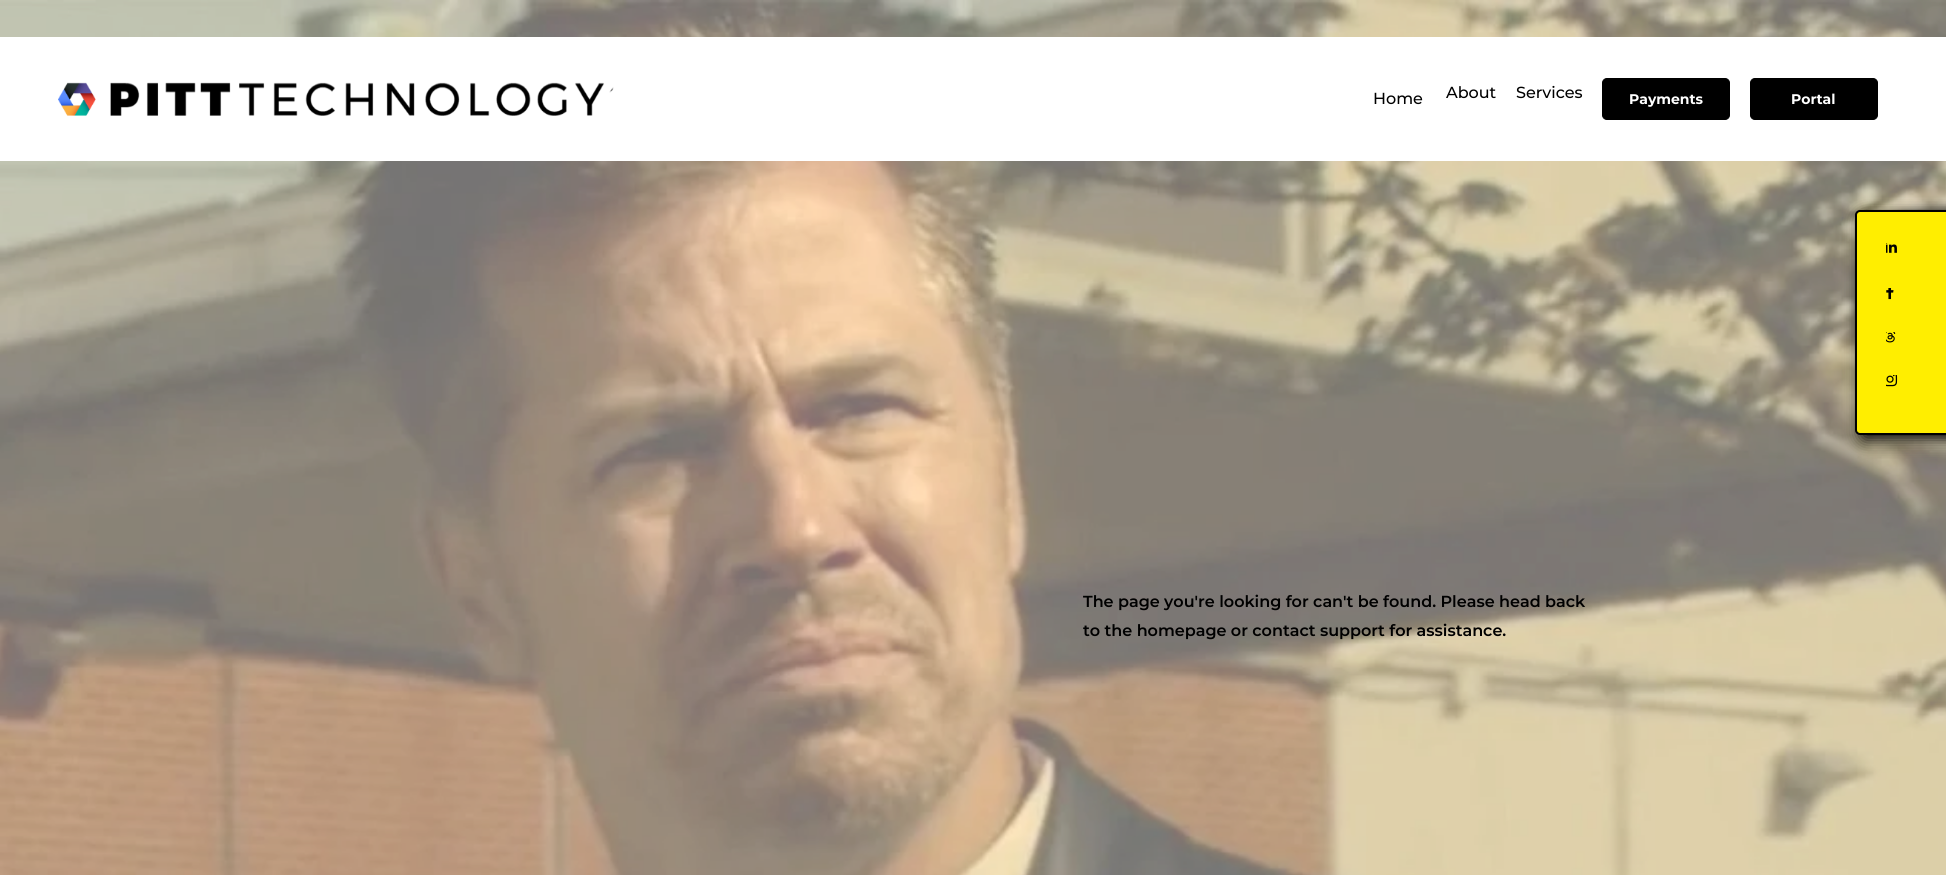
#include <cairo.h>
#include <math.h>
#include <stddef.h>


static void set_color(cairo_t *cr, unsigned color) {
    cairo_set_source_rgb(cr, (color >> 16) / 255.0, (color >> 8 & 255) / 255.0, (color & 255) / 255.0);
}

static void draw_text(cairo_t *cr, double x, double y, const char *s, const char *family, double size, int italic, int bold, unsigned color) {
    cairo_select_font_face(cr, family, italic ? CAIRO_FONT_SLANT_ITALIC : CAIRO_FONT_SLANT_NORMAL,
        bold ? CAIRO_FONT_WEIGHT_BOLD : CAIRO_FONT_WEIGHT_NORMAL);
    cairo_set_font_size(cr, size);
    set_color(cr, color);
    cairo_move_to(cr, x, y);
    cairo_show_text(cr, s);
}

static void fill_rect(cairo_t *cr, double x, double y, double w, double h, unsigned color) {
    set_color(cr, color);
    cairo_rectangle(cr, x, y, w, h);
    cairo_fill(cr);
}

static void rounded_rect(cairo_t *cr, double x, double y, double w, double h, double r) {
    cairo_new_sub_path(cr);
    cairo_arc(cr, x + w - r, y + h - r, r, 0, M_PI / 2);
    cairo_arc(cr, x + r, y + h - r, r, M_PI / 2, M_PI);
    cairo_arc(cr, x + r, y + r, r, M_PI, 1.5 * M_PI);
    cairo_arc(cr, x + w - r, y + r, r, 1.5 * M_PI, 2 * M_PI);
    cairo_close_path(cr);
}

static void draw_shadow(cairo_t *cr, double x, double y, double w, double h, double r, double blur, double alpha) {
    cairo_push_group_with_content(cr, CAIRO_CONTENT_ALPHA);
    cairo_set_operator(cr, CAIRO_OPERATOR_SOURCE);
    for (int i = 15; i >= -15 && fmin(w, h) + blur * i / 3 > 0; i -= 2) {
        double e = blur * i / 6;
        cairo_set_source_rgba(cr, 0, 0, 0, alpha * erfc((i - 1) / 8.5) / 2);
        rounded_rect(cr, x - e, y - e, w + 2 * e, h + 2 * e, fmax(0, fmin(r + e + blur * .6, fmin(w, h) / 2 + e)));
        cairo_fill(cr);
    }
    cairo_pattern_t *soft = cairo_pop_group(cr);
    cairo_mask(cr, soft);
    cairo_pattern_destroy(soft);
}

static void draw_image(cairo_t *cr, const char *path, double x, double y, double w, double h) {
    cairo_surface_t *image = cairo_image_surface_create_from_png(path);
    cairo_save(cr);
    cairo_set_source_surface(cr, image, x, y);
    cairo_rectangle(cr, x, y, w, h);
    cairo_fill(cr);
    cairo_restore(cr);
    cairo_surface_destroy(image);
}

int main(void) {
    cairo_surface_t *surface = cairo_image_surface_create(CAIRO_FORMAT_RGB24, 1946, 875);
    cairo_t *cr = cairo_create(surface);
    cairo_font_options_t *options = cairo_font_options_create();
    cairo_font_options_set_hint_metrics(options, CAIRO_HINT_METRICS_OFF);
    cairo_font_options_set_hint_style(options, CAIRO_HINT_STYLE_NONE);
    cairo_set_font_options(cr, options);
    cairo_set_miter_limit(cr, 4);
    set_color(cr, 0xFFFFFF);
    cairo_paint(cr);
    draw_image(cr, "assets/img6.png", 0, 0, 1946, 875);
    fill_rect(cr, 0, 37, 1946, 124, 0xFFFFFF);
    draw_image(cr, "assets/img1.png", 58, 82, 556, 34);
    draw_text(cr, 1373, 104, "Home", "Montserrat Medium", 16, 0, 0, 0x000000);
    draw_text(cr, 1446, 98, "About", "Montserrat Medium", 16, 0, 0, 0x000000);
    draw_text(cr, 1516, 98, "Services", "Montserrat Medium", 16, 0, 0, 0x000000);
    rounded_rect(cr, 1602.5, 78.5, 127, 41, 4.5);
    cairo_fill_preserve(cr);
    cairo_set_line_width(cr, 1);
    cairo_stroke(cr);
    draw_text(cr, 1629, 104, "Payments", "Montserrat", 14, 0, 1, 0xFFFFFF);
    set_color(cr, 0x000000);
    rounded_rect(cr, 1750.5, 78.5, 127, 41, 4.5);
    cairo_fill_preserve(cr);
    cairo_stroke(cr);
    draw_text(cr, 1791, 104, "Portal", "Montserrat", 14, 0, 1, 0xFFFFFF);
    set_color(cr, 0x000000);
    draw_shadow(cr, 1860, 215, 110, 225, 5, 7.5, 1);
    set_color(cr, 0xFFEE00);
    rounded_rect(cr, 1856, 211, 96, 223, 4);
    cairo_fill_preserve(cr);
    set_color(cr, 0x000000);
    cairo_set_line_width(cr, 2);
    cairo_stroke(cr);
    draw_image(cr, "assets/img2.png", 1886, 243, 11, 10);
    draw_image(cr, "assets/img3.png", 1886, 288, 8, 12);
    draw_image(cr, "assets/img4.png", 1886, 332, 10, 11);
    draw_image(cr, "assets/img5.png", 1886, 375, 12, 12);
    draw_text(cr, 1083, 607, "The page you're looking for can't be found. Please head back", "Montserrat SemiBold", 16, 0, 0, 0x000000);
    draw_text(cr, 1083, 636, "to the homepage or contact support for assistance.", "Montserrat SemiBold", 16, 0, 0, 0x000000);
    cairo_surface_write_to_png(surface, "output.png");
    cairo_font_options_destroy(options);
    cairo_destroy(cr);
    cairo_surface_destroy(surface);
    return 0;
}
